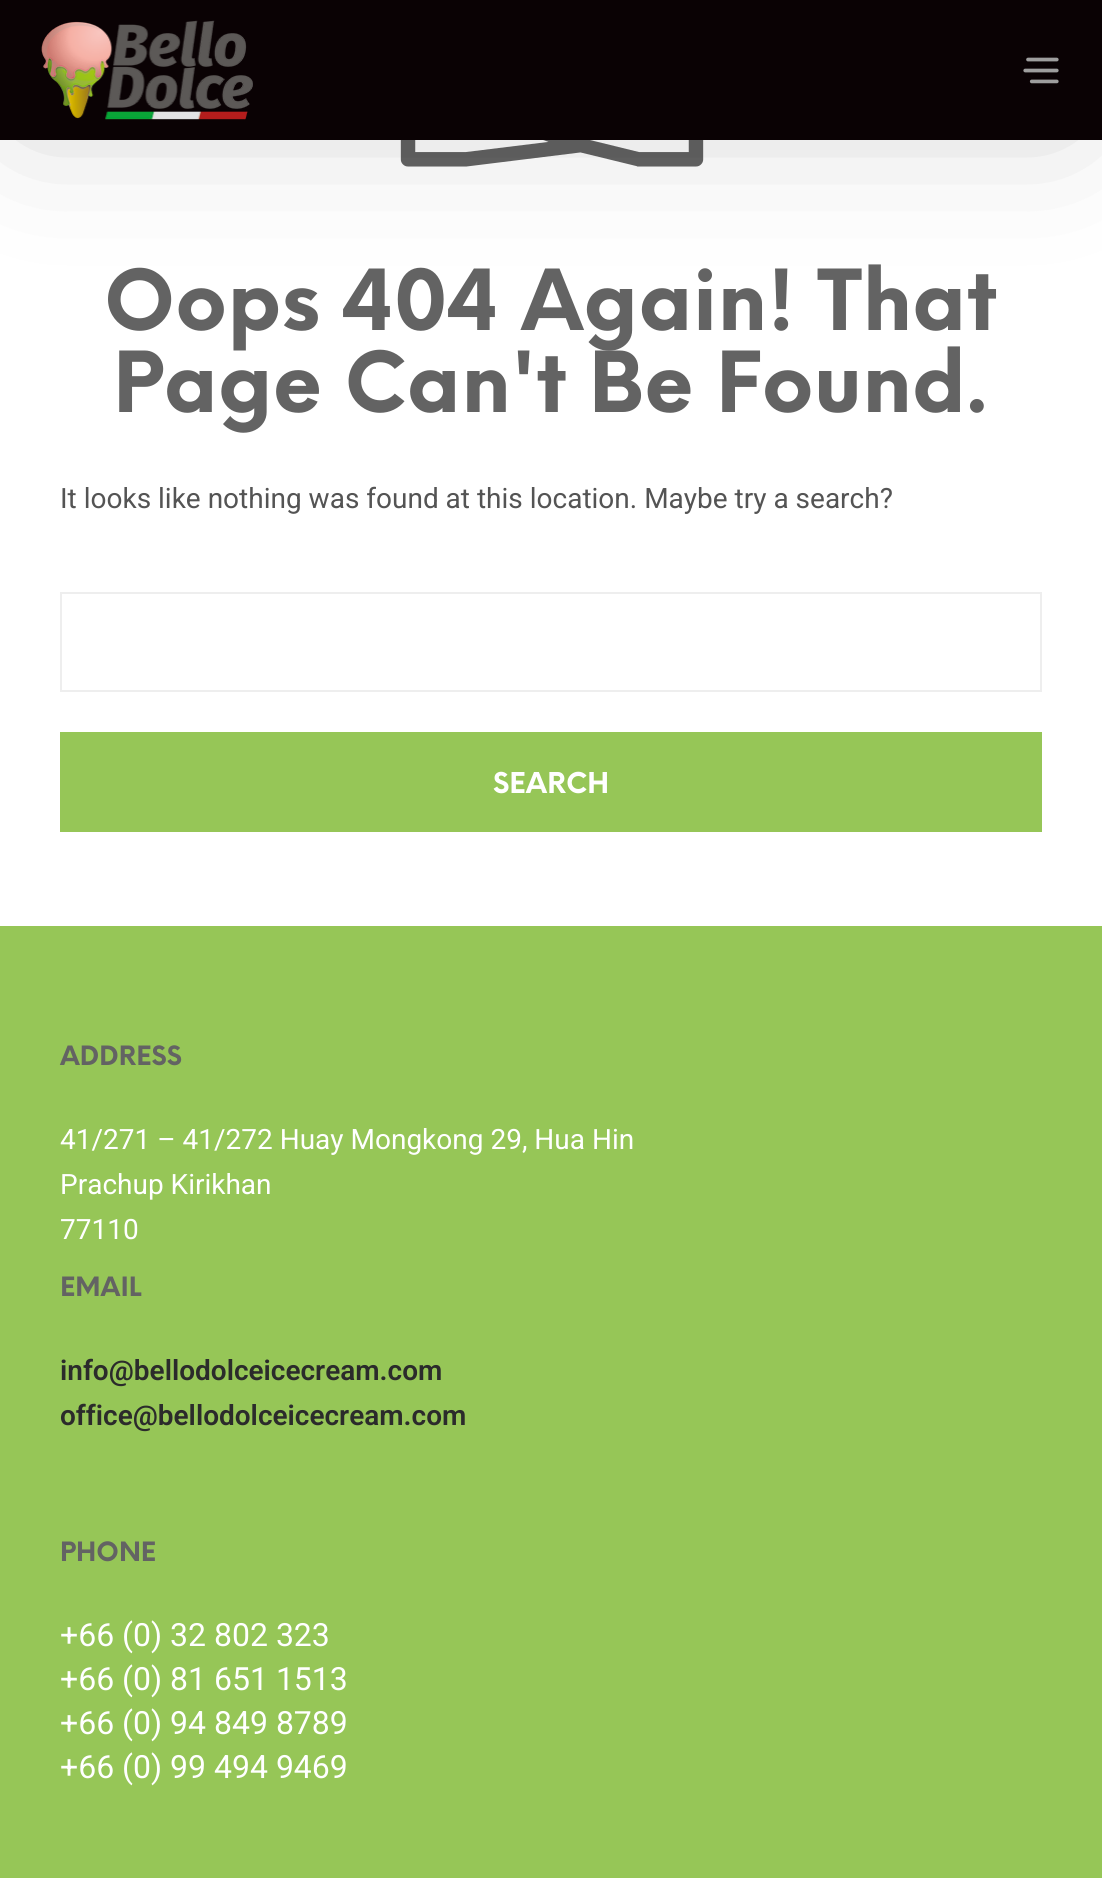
#include <cairo.h>
#include <math.h>
#include <stddef.h>


static void set_color(cairo_t *cr, unsigned color) {
    cairo_set_source_rgb(cr, (color >> 16) / 255.0, (color >> 8 & 255) / 255.0, (color & 255) / 255.0);
}

static void draw_text(cairo_t *cr, double x, double y, const char *s, const char *family, double size, int italic, int bold, unsigned color) {
    cairo_select_font_face(cr, family, italic ? CAIRO_FONT_SLANT_ITALIC : CAIRO_FONT_SLANT_NORMAL,
        bold ? CAIRO_FONT_WEIGHT_BOLD : CAIRO_FONT_WEIGHT_NORMAL);
    cairo_set_font_size(cr, size);
    set_color(cr, color);
    cairo_move_to(cr, x, y);
    cairo_show_text(cr, s);
}

static void fill_rect(cairo_t *cr, double x, double y, double w, double h, unsigned color) {
    set_color(cr, color);
    cairo_rectangle(cr, x, y, w, h);
    cairo_fill(cr);
}

static void rounded_rect(cairo_t *cr, double x, double y, double w, double h, double r) {
    cairo_new_sub_path(cr);
    cairo_arc(cr, x + w - r, y + h - r, r, 0, M_PI / 2);
    cairo_arc(cr, x + r, y + h - r, r, M_PI / 2, M_PI);
    cairo_arc(cr, x + r, y + r, r, M_PI, 1.5 * M_PI);
    cairo_arc(cr, x + w - r, y + r, r, 1.5 * M_PI, 2 * M_PI);
    cairo_close_path(cr);
}

static void draw_shadow(cairo_t *cr, double x, double y, double w, double h, double r, double blur, double alpha) {
    cairo_push_group_with_content(cr, CAIRO_CONTENT_ALPHA);
    cairo_set_operator(cr, CAIRO_OPERATOR_SOURCE);
    for (int i = 15; i >= -15 && fmin(w, h) + blur * i / 3 > 0; i -= 2) {
        double e = blur * i / 6;
        cairo_set_source_rgba(cr, 0, 0, 0, alpha * erfc((i - 1) / 8.5) / 2);
        rounded_rect(cr, x - e, y - e, w + 2 * e, h + 2 * e, fmax(0, fmin(r + e + blur * .6, fmin(w, h) / 2 + e)));
        cairo_fill(cr);
    }
    cairo_pattern_t *soft = cairo_pop_group(cr);
    cairo_mask(cr, soft);
    cairo_pattern_destroy(soft);
}

static void draw_image(cairo_t *cr, const char *path, double x, double y, double w, double h) {
    cairo_surface_t *image = cairo_image_surface_create_from_png(path);
    cairo_save(cr);
    cairo_set_source_surface(cr, image, x, y);
    cairo_rectangle(cr, x, y, w, h);
    cairo_fill(cr);
    cairo_restore(cr);
    cairo_surface_destroy(image);
}

int main(void) {
    cairo_surface_t *surface = cairo_image_surface_create(CAIRO_FORMAT_RGB24, 1102, 1878);
    cairo_t *cr = cairo_create(surface);
    cairo_font_options_t *options = cairo_font_options_create();
    cairo_font_options_set_hint_metrics(options, CAIRO_HINT_METRICS_OFF);
    cairo_font_options_set_hint_style(options, CAIRO_HINT_STYLE_NONE);
    cairo_set_font_options(cr, options);
    cairo_set_miter_limit(cr, 4);
    set_color(cr, 0xFFFFFF);
    cairo_paint(cr);
    draw_image(cr, "assets/img3.png", 400, 140, 304, 27);
    set_color(cr, 0x000000);
    draw_shadow(cr, 50, 56, 994, 34, 0, 81, 0.29);
    fill_rect(cr, 0, 0, 1102, 140, 0x0A0204);
    draw_image(cr, "assets/img1.png", 41, 20, 212, 100);
    draw_image(cr, "assets/img2.png", 1023, 57, 36, 27);
    draw_text(cr, 104, 330, "Oops 404 Again! That", "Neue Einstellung", 82, 0, 1, 0x636363);
    draw_text(cr, 113, 412, "Page Can't Be Found.", "Neue Einstellung", 82, 0, 1, 0x636363);
    draw_text(cr, 60, 508, "It looks like nothing was found at this location. Maybe try a search?", "Roboto", 28, 0, 0, 0x545454);
    cairo_rectangle(cr, 61, 593, 980, 98);
    set_color(cr, 0xEEEEEE);
    cairo_stroke(cr);
    fill_rect(cr, 60, 732, 982, 100, 0x96C657);
    draw_text(cr, 493, 793, "SEARCH", "Neue Einstellung", 28, 0, 1, 0xFFFFFF);
    fill_rect(cr, 0, 926, 1102, 952, 0x96C657);
    draw_text(cr, 60, 1065, "ADDRESS", "Neue Einstellung", 26, 0, 1, 0x636363);
    draw_text(cr, 60, 1149, "41/271 – 41/272 Huay Mongkong 29, Hua Hin", "Roboto", 28, 0, 0, 0xFFFFFF);
    draw_text(cr, 60, 1194, "Prachup Kirikhan", "Roboto", 28, 0, 0, 0xFFFFFF);
    draw_text(cr, 60, 1239, "77110", "Roboto", 28, 0, 0, 0xFFFFFF);
    draw_text(cr, 60, 1296, "EMAIL", "Neue Einstellung", 26, 0, 1, 0x636363);
    draw_text(cr, 60, 1380, "info@bellodolceicecream.com", "Roboto SemiBold", 28, 0, 0, 0x2B2B2B);
    draw_text(cr, 60, 1425, "office@bellodolceicecream.com", "Roboto SemiBold", 28, 0, 0, 0x2B2B2B);
    draw_text(cr, 60, 1561, "PHONE", "Neue Einstellung", 26, 0, 1, 0x636363);
    draw_text(cr, 60, 1646, "+66 (0) 32 802 323", "Roboto", 32, 0, 0, 0xFFFFFF);
    draw_text(cr, 60, 1690, "+66 (0) 81 651 1513", "Roboto", 32, 0, 0, 0xFFFFFF);
    draw_text(cr, 60, 1734, "+66 (0) 94 849 8789", "Roboto", 32, 0, 0, 0xFFFFFF);
    draw_text(cr, 60, 1778, "+66 (0) 99 494 9469", "Roboto", 32, 0, 0, 0xFFFFFF);
    cairo_surface_write_to_png(surface, "output.png");
    cairo_font_options_destroy(options);
    cairo_destroy(cr);
    cairo_surface_destroy(surface);
    return 0;
}
